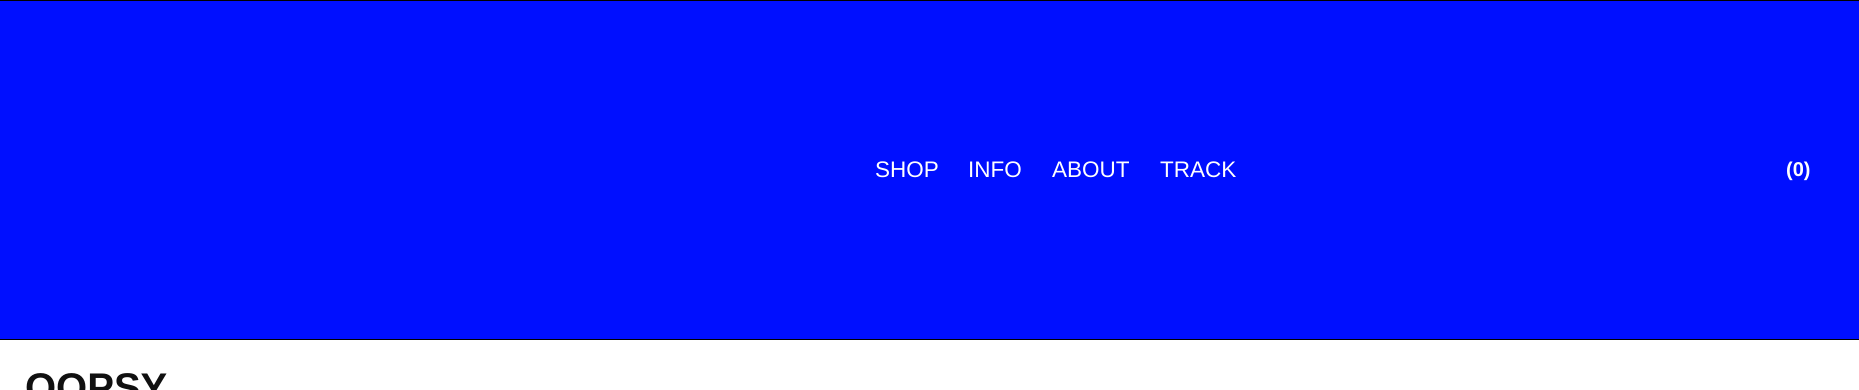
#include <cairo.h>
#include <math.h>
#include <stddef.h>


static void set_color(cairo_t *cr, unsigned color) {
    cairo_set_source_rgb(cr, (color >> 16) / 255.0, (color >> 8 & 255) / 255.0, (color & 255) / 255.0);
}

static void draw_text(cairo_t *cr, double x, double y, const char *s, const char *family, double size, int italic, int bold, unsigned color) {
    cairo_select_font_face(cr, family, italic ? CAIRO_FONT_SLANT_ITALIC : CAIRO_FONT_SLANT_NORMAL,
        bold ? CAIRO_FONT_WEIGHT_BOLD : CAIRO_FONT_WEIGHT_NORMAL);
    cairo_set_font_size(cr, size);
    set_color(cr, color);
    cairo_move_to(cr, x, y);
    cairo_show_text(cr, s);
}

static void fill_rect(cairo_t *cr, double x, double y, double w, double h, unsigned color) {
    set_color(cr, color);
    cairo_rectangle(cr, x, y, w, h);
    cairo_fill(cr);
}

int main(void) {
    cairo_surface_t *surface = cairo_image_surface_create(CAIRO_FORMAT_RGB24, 1859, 390);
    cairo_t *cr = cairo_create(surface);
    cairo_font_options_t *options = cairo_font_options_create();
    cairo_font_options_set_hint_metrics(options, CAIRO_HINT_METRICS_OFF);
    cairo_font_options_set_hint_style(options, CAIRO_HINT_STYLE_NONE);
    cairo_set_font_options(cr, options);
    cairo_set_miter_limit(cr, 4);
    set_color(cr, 0xFFFFFF);
    cairo_paint(cr);
    fill_rect(cr, 0, 1, 1859, 338, 0x000FFF);
    fill_rect(cr, 0, 0, 1859, 1, 0x000000);
    fill_rect(cr, 0, 339, 1859, 1, 0x000000);
    draw_text(cr, 875, 177, "SHOP", "Liberation Sans", 22.5, 0, 0, 0xFFFFFF);
    draw_text(cr, 968, 177, "INFO", "Liberation Sans", 22.5, 0, 0, 0xFFFFFF);
    draw_text(cr, 1052, 177, "ABOUT", "Liberation Sans", 22.5, 0, 0, 0xFFFFFF);
    draw_text(cr, 1160, 177, "TRACK", "Liberation Sans", 22.5, 0, 0, 0xFFFFFF);
    draw_text(cr, 1786, 176, "(0)", "Liberation Sans", 20, 0, 1, 0xFFFFFF);
    draw_text(cr, 25, 401, "OOPSY", "Liberation Sans", 40, 0, 1, 0x101010);
    cairo_surface_write_to_png(surface, "output.png");
    cairo_font_options_destroy(options);
    cairo_destroy(cr);
    cairo_surface_destroy(surface);
    return 0;
}
